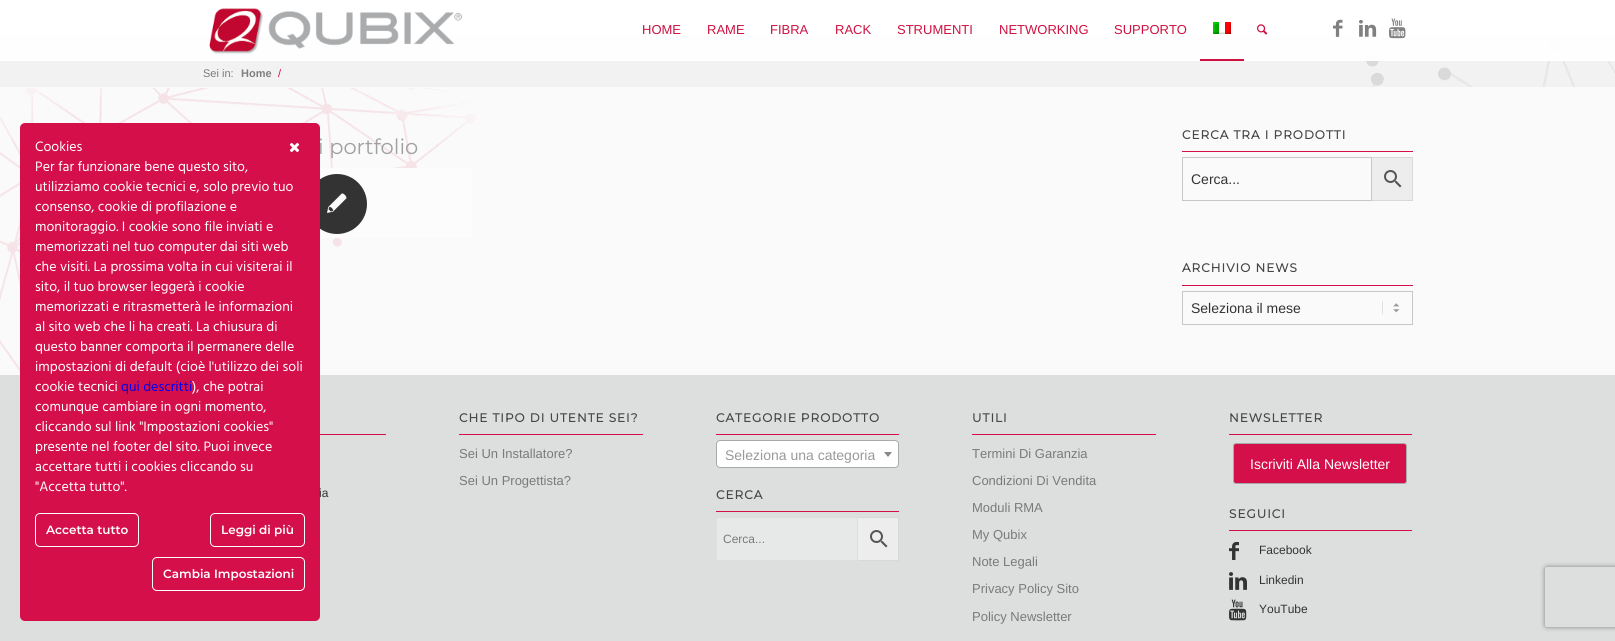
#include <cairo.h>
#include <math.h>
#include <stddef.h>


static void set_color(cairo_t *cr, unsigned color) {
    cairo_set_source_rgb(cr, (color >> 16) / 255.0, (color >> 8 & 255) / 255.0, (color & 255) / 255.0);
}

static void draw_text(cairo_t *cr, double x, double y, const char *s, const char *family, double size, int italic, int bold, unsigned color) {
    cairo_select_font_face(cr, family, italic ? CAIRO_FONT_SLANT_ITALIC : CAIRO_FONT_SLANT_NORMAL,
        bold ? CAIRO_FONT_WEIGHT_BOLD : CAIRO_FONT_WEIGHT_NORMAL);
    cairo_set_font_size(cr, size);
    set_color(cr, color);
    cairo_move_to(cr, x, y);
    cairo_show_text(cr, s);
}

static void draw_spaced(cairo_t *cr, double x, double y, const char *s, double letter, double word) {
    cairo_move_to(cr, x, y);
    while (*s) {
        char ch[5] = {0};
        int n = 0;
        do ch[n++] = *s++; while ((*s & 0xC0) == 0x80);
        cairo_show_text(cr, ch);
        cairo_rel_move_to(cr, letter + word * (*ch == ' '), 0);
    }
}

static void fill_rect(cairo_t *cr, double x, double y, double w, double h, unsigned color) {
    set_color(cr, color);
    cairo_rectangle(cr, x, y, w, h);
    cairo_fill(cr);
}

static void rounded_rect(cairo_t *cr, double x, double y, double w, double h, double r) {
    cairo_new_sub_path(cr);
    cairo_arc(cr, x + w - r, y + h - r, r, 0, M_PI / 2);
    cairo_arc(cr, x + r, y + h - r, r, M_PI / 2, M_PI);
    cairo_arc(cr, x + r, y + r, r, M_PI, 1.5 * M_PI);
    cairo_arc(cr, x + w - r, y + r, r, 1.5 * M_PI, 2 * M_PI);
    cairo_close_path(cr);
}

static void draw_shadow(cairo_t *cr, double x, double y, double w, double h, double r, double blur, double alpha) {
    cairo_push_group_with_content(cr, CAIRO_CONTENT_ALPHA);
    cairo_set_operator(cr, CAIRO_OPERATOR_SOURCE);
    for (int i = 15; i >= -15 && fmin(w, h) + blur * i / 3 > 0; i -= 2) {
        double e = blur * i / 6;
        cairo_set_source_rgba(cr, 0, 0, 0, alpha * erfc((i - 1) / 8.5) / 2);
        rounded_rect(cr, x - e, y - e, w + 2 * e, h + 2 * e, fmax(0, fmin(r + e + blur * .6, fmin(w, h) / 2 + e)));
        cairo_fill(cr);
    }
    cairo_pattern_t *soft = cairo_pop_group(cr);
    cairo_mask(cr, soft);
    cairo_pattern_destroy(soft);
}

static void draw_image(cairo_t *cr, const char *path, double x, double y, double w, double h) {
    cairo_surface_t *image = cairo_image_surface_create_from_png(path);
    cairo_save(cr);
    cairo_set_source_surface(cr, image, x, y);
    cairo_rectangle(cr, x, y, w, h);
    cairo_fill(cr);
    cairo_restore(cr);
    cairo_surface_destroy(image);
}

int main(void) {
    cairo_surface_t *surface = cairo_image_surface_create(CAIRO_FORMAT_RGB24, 1615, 641);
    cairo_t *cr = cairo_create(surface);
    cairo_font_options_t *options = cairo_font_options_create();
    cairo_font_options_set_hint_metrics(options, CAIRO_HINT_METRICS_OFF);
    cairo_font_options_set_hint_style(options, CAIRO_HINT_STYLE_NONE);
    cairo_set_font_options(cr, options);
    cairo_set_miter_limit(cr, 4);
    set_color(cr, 0xFFFFFF);
    cairo_paint(cr);
    fill_rect(cr, 0, 87, 1615, 288, 0xFAFAFA);
    draw_image(cr, "assets/img9.png", 0, 88, 502, 284);
    draw_text(cr, 318, 154, "i portfolio", "Montserrat Thin", 21, 0, 0, 0xA0A0A3);
    set_color(cr, 0xFCFCFC);
    rounded_rect(cr, 203, 168, 269, 70, 3);
    cairo_fill(cr);
    set_color(cr, 0x333333);
    cairo_arc(cr, 337, 204, 30, 0, 2 * M_PI);
    cairo_fill(cr);
    fill_rect(cr, 0, 375, 1615, 266, 0xDDDEDE);
    set_color(cr, 0xD40F4A);
    rounded_rect(cr, 20, 123, 300, 498, 5);
    cairo_fill(cr);
    draw_text(cr, 35, 151, "Cookies", "Hind", 14, 0, 0, 0xFFFFFF);
    draw_text(cr, 35, 171, "Per far funzionare bene questo sito,", "Hind", 14, 0, 0, 0xFFFFFF);
    draw_text(cr, 35, 191, "utilizziamo cookie tecnici e, solo previo tuo", "Hind", 14, 0, 0, 0xFFFFFF);
    draw_text(cr, 35, 211, "consenso, cookie di profilazione e", "Hind", 14, 0, 0, 0xFFFFFF);
    draw_text(cr, 35, 231, "monitoraggio. I cookie sono file inviati e", "Hind", 14, 0, 0, 0xFFFFFF);
    draw_text(cr, 35, 251, "memorizzati nel tuo computer dai siti web", "Hind", 14, 0, 0, 0xFFFFFF);
    draw_text(cr, 35, 271, "che visiti. La prossima volta in cui visiterai il", "Hind", 14, 0, 0, 0xFFFFFF);
    draw_text(cr, 35, 291, "sito, il tuo browser leggerà i cookie", "Hind", 14, 0, 0, 0xFFFFFF);
    draw_text(cr, 35, 311, "memorizzati e ritrasmetterà le informazioni", "Hind", 14, 0, 0, 0xFFFFFF);
    draw_text(cr, 35, 331, "al sito web che li ha creati. La chiusura di", "Hind", 14, 0, 0, 0xFFFFFF);
    draw_text(cr, 35, 351, "questo banner comporta il permanere delle", "Hind", 14, 0, 0, 0xFFFFFF);
    draw_text(cr, 35, 371, "impostazioni di default (cioè l'utilizzo dei soli", "Hind", 14, 0, 0, 0xFFFFFF);
    draw_text(cr, 35, 391, "cookie tecnici", "Hind", 14, 0, 0, 0xFFFFFF);
    draw_text(cr, 121, 391, "qui descritti", "Hind", 14, 0, 0, 0x0000EE);
    draw_text(cr, 192, 391, "), che potrai", "Hind", 14, 0, 0, 0xFFFFFF);
    draw_text(cr, 35, 411, "comunque cambiare in ogni momento,", "Hind", 14, 0, 0, 0xFFFFFF);
    draw_text(cr, 35, 431, "cliccando sul link \"Impostazioni cookies\"", "Hind", 14, 0, 0, 0xFFFFFF);
    draw_text(cr, 35, 451, "presente nel footer del sito. Puoi invece", "Hind", 14, 0, 0, 0xFFFFFF);
    draw_text(cr, 35, 471, "accettare tutti i cookies cliccando su", "Hind", 14, 0, 0, 0xFFFFFF);
    draw_text(cr, 35, 491, "\"Accetta tutto\".", "Hind", 14, 0, 0, 0xFFFFFF);
    draw_image(cr, "assets/img1.png", 289, 142, 11, 11);
    rounded_rect(cr, 35.5, 513.5, 103, 33, 4.5);
    cairo_set_line_width(cr, 1);
    cairo_stroke(cr);
    draw_text(cr, 46, 534, "Accetta tutto", "Montserrat SemiBold", 12, 0, 0, 0xFFFFFF);
    rounded_rect(cr, 210.5, 513.5, 94, 33, 4.5);
    cairo_stroke(cr);
    draw_text(cr, 221, 534, "Leggi di più", "Montserrat SemiBold", 12, 0, 0, 0xFFFFFF);
    rounded_rect(cr, 152.5, 557.5, 152, 33, 4.5);
    cairo_stroke(cr);
    draw_text(cr, 163, 578, "Cambia Impostazioni", "Montserrat SemiBold", 12, 0, 0, 0xFFFFFF);
    fill_rect(cr, 0, 36, 1615, 51, 0xF2F2F2);
    draw_image(cr, "assets/img8.png", 1366, 36, 249, 51);
    fill_rect(cr, 0, 60, 1615, 1, 0xFFFFFF);
    fill_rect(cr, 0, 35, 1615, 1, 0xE1E1E1);
    cairo_set_source_rgba(cr, 1, 1, 1, 0.95);
    cairo_rectangle(cr, 0, 35, 1615, 25);
    cairo_fill(cr);
    draw_image(cr, "assets/img2.png", 209, 8, 253, 46);
    draw_text(cr, 642, 34, "HOME", "Liberation Sans", 13, 0, 0, 0xCE1141);
    draw_text(cr, 707, 34, "RAME", "Liberation Sans", 13, 0, 0, 0xCE1141);
    draw_text(cr, 770, 34, "FIBRA", "Liberation Sans", 13, 0, 0, 0xCE1141);
    draw_text(cr, 835, 34, "RACK", "Liberation Sans", 13, 0, 0, 0xCE1141);
    draw_text(cr, 897, 34, "STRUMENTI", "Liberation Sans", 13, 0, 0, 0xCE1141);
    draw_text(cr, 999, 34, "NETWORKING", "Liberation Sans", 13, 0, 0, 0xCE1141);
    draw_text(cr, 1114, 34, "SUPPORTO", "Liberation Sans", 13, 0, 0, 0xCE1141);
    draw_image(cr, "assets/img3.png", 1213, 22, 18, 12);
    fill_rect(cr, 1200, 59, 44, 2, 0xCE1140);
    draw_image(cr, "assets/img4.png", 1257, 24, 11, 11);
    draw_image(cr, "assets/img5.png", 1333, 19, 10, 18);
    draw_image(cr, "assets/img6.png", 1359, 20, 18, 17);
    draw_image(cr, "assets/img7.png", 1389, 18, 17, 21);
    draw_text(cr, 203, 77, "Sei in:", "Liberation Sans", 11, 0, 0, 0x7A7A7B);
    draw_text(cr, 241, 77, "Home", "Liberation Sans", 11, 0, 1, 0x808080);
    draw_text(cr, 278, 77, "/", "Liberation Sans", 11, 0, 0, 0xCE1141);
    draw_image(cr, "assets/img10.png", 327, 193, 20, 20);
    fill_rect(cr, 1182, 151, 231, 1, 0xD40F49);
    cairo_select_font_face(cr, "Montserrat", CAIRO_FONT_SLANT_NORMAL, CAIRO_FONT_WEIGHT_BOLD);
    cairo_set_font_size(cr, 12);
    set_color(cr, 0x474747);
    draw_spaced(cr, 1182, 139, "CERCA TRA I PRODOTTI", 1, 0);
    set_color(cr, 0xEDEDED);
    cairo_rectangle(cr, 1371.5, 157.5, 41, 43);
    cairo_fill_preserve(cr);
    set_color(cr, 0xD8D8D8);
    cairo_stroke(cr);
    cairo_rectangle(cr, 1182.5, 157.5, 189, 43);
    set_color(cr, 0xC7C7C7);
    cairo_stroke(cr);
    draw_text(cr, 1191, 184, "Cerca...", "Liberation Sans", 14, 0, 0, 0x333333);
    draw_image(cr, "assets/img11.png", 1384, 170, 18, 18);
    fill_rect(cr, 1182, 285, 231, 1, 0xD40F49);
    cairo_select_font_face(cr, "Montserrat", CAIRO_FONT_SLANT_NORMAL, CAIRO_FONT_WEIGHT_BOLD);
    cairo_set_font_size(cr, 12);
    set_color(cr, 0x474747);
    draw_spaced(cr, 1182, 272, "ARCHIVIO NEWS", 1, 0);
    draw_image(cr, "assets/img12.png", 1382, 301, 18, 13);
    cairo_rectangle(cr, 1182.5, 291.5, 230, 33);
    set_color(cr, 0xC7C7C7);
    cairo_stroke(cr);
    draw_text(cr, 1191, 313, "Seleziona il mese", "Liberation Sans", 14, 0, 0, 0x333333);
    fill_rect(cr, 320, 434, 66, 1, 0xD40F49);
    draw_text(cr, 319, 497, "ia", "Liberation Sans", 12, 0, 0, 0x333333);
    fill_rect(cr, 459, 434, 184, 1, 0xD40F49);
    cairo_select_font_face(cr, "Montserrat", CAIRO_FONT_SLANT_NORMAL, CAIRO_FONT_WEIGHT_BOLD);
    set_color(cr, 0x474747);
    draw_spaced(cr, 459, 422, "CHE TIPO DI UTENTE SEI?", 1, 0);
    draw_text(cr, 459, 458, "Sei Un Installatore?", "Liberation Sans", 13, 0, 0, 0x7A7A7B);
    draw_text(cr, 459, 485, "Sei Un Progettista?", "Liberation Sans", 13, 0, 0, 0x7A7A7B);
    fill_rect(cr, 716, 434, 183, 1, 0xD40F49);
    cairo_select_font_face(cr, "Montserrat", CAIRO_FONT_SLANT_NORMAL, CAIRO_FONT_WEIGHT_BOLD);
    cairo_set_font_size(cr, 12);
    set_color(cr, 0x474747);
    draw_spaced(cr, 716, 422, "CATEGORIE PRODOTTO", 1, 0);
    set_color(cr, 0xFFFFFF);
    rounded_rect(cr, 716.5, 440.5, 182, 27, 3.5);
    cairo_fill_preserve(cr);
    set_color(cr, 0xAAAAAA);
    cairo_stroke(cr);
    draw_text(cr, 725, 460, "Seleziona una categoria", "Liberation Sans", 14, 0, 0, 0x999999);
    set_color(cr, 0x888888);
    cairo_new_path(cr);
    cairo_move_to(cr, 884, 452);
    cairo_line_to(cr, 892, 452);
    cairo_line_to(cr, 888, 457);
    cairo_close_path(cr);
    cairo_fill(cr);
    fill_rect(cr, 716, 511, 183, 1, 0xD40F49);
    cairo_select_font_face(cr, "Montserrat", CAIRO_FONT_SLANT_NORMAL, CAIRO_FONT_WEIGHT_BOLD);
    cairo_set_font_size(cr, 12);
    set_color(cr, 0x474747);
    draw_spaced(cr, 716, 499, "CERCA", 1, 0);
    set_color(cr, 0xEDEDED);
    cairo_rectangle(cr, 857.5, 517.5, 41, 43);
    cairo_fill_preserve(cr);
    set_color(cr, 0xD8D8D8);
    cairo_stroke(cr);
    set_color(cr, 0xE7E8E8);
    cairo_rectangle(cr, 716.5, 517.5, 141, 43);
    cairo_fill_preserve(cr);
    set_color(cr, 0xDDDEDE);
    cairo_stroke(cr);
    draw_text(cr, 723, 543, "Cerca...", "Liberation Sans", 12, 0, 0, 0x7A7A7B);
    draw_image(cr, "assets/img11.png", 870, 530, 18, 18);
    fill_rect(cr, 972, 434, 184, 1, 0xD40F49);
    cairo_select_font_face(cr, "Montserrat", CAIRO_FONT_SLANT_NORMAL, CAIRO_FONT_WEIGHT_BOLD);
    set_color(cr, 0x474747);
    draw_spaced(cr, 972, 422, "UTILI", 1, 0);
    draw_text(cr, 972, 458, "Termini Di Garanzia", "Liberation Sans", 13, 0, 0, 0x7A7A7B);
    draw_text(cr, 972, 485, "Condizioni Di Vendita", "Liberation Sans", 13, 0, 0, 0x7A7A7B);
    draw_text(cr, 972, 512, "Moduli RMA", "Liberation Sans", 13, 0, 0, 0x7A7A7B);
    draw_text(cr, 972, 539, "My Qubix", "Liberation Sans", 13, 0, 0, 0x7A7A7B);
    draw_text(cr, 972, 566, "Note Legali", "Liberation Sans", 13, 0, 0, 0x7A7A7B);
    draw_text(cr, 972, 593, "Privacy Policy Sito", "Liberation Sans", 13, 0, 0, 0x7A7A7B);
    draw_text(cr, 972, 621, "Policy Newsletter", "Liberation Sans", 13, 0, 0, 0x7A7A7B);
    fill_rect(cr, 1229, 434, 183, 1, 0xD40F49);
    cairo_select_font_face(cr, "Montserrat", CAIRO_FONT_SLANT_NORMAL, CAIRO_FONT_WEIGHT_BOLD);
    cairo_set_font_size(cr, 12);
    set_color(cr, 0x474747);
    draw_spaced(cr, 1229, 422, "NEWSLETTER", 1, 0);
    set_color(cr, 0xD40F49);
    rounded_rect(cr, 1233.5, 443.5, 173, 40, 2.5);
    cairo_fill_preserve(cr);
    set_color(cr, 0xA8A8AB);
    cairo_stroke(cr);
    draw_text(cr, 1250, 469, "Iscriviti Alla Newsletter", "Liberation Sans", 14, 0, 0, 0xFFFFFF);
    fill_rect(cr, 1229, 530, 183, 1, 0xD40F49);
    cairo_select_font_face(cr, "Montserrat", CAIRO_FONT_SLANT_NORMAL, CAIRO_FONT_WEIGHT_BOLD);
    cairo_set_font_size(cr, 12);
    set_color(cr, 0x474747);
    draw_spaced(cr, 1229, 518, "SEGUICI", 1, 0);
    draw_image(cr, "assets/img13.png", 1229, 542, 10, 18);
    draw_text(cr, 1259, 554, "Facebook", "Liberation Sans", 12, 0, 0, 0x333333);
    draw_image(cr, "assets/img14.png", 1229, 572, 18, 18);
    draw_text(cr, 1259, 584, "Linkedin", "Liberation Sans", 12, 0, 0, 0x333333);
    draw_image(cr, "assets/img15.png", 1229, 599, 18, 22);
    draw_text(cr, 1259, 613, "YouTube", "Liberation Sans", 12, 0, 0, 0x333333);
    cairo_save(cr);
    cairo_set_fill_rule(cr, CAIRO_FILL_RULE_EVEN_ODD);
    cairo_new_path(cr);
    cairo_move_to(cr, 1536, 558);
    cairo_line_to(cr, 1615, 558);
    cairo_line_to(cr, 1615, 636);
    cairo_line_to(cr, 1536, 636);
    cairo_close_path(cr);
    cairo_move_to(cr, 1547, 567);
    cairo_line_to(cr, 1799, 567);
    cairo_curve_to(cr, 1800, 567, 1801, 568, 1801, 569);
    cairo_line_to(cr, 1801, 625);
    cairo_curve_to(cr, 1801, 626, 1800, 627, 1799, 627);
    cairo_line_to(cr, 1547, 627);
    cairo_curve_to(cr, 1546, 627, 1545, 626, 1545, 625);
    cairo_line_to(cr, 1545, 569);
    cairo_curve_to(cr, 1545, 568, 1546, 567, 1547, 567);
    cairo_close_path(cr);
    cairo_clip(cr);
    set_color(cr, 0x808080);
    draw_shadow(cr, 1545, 567, 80, 60, 2, 2.5, 1);
    cairo_restore(cr);
    cairo_surface_write_to_png(surface, "output.png");
    cairo_font_options_destroy(options);
    cairo_destroy(cr);
    cairo_surface_destroy(surface);
    return 0;
}
